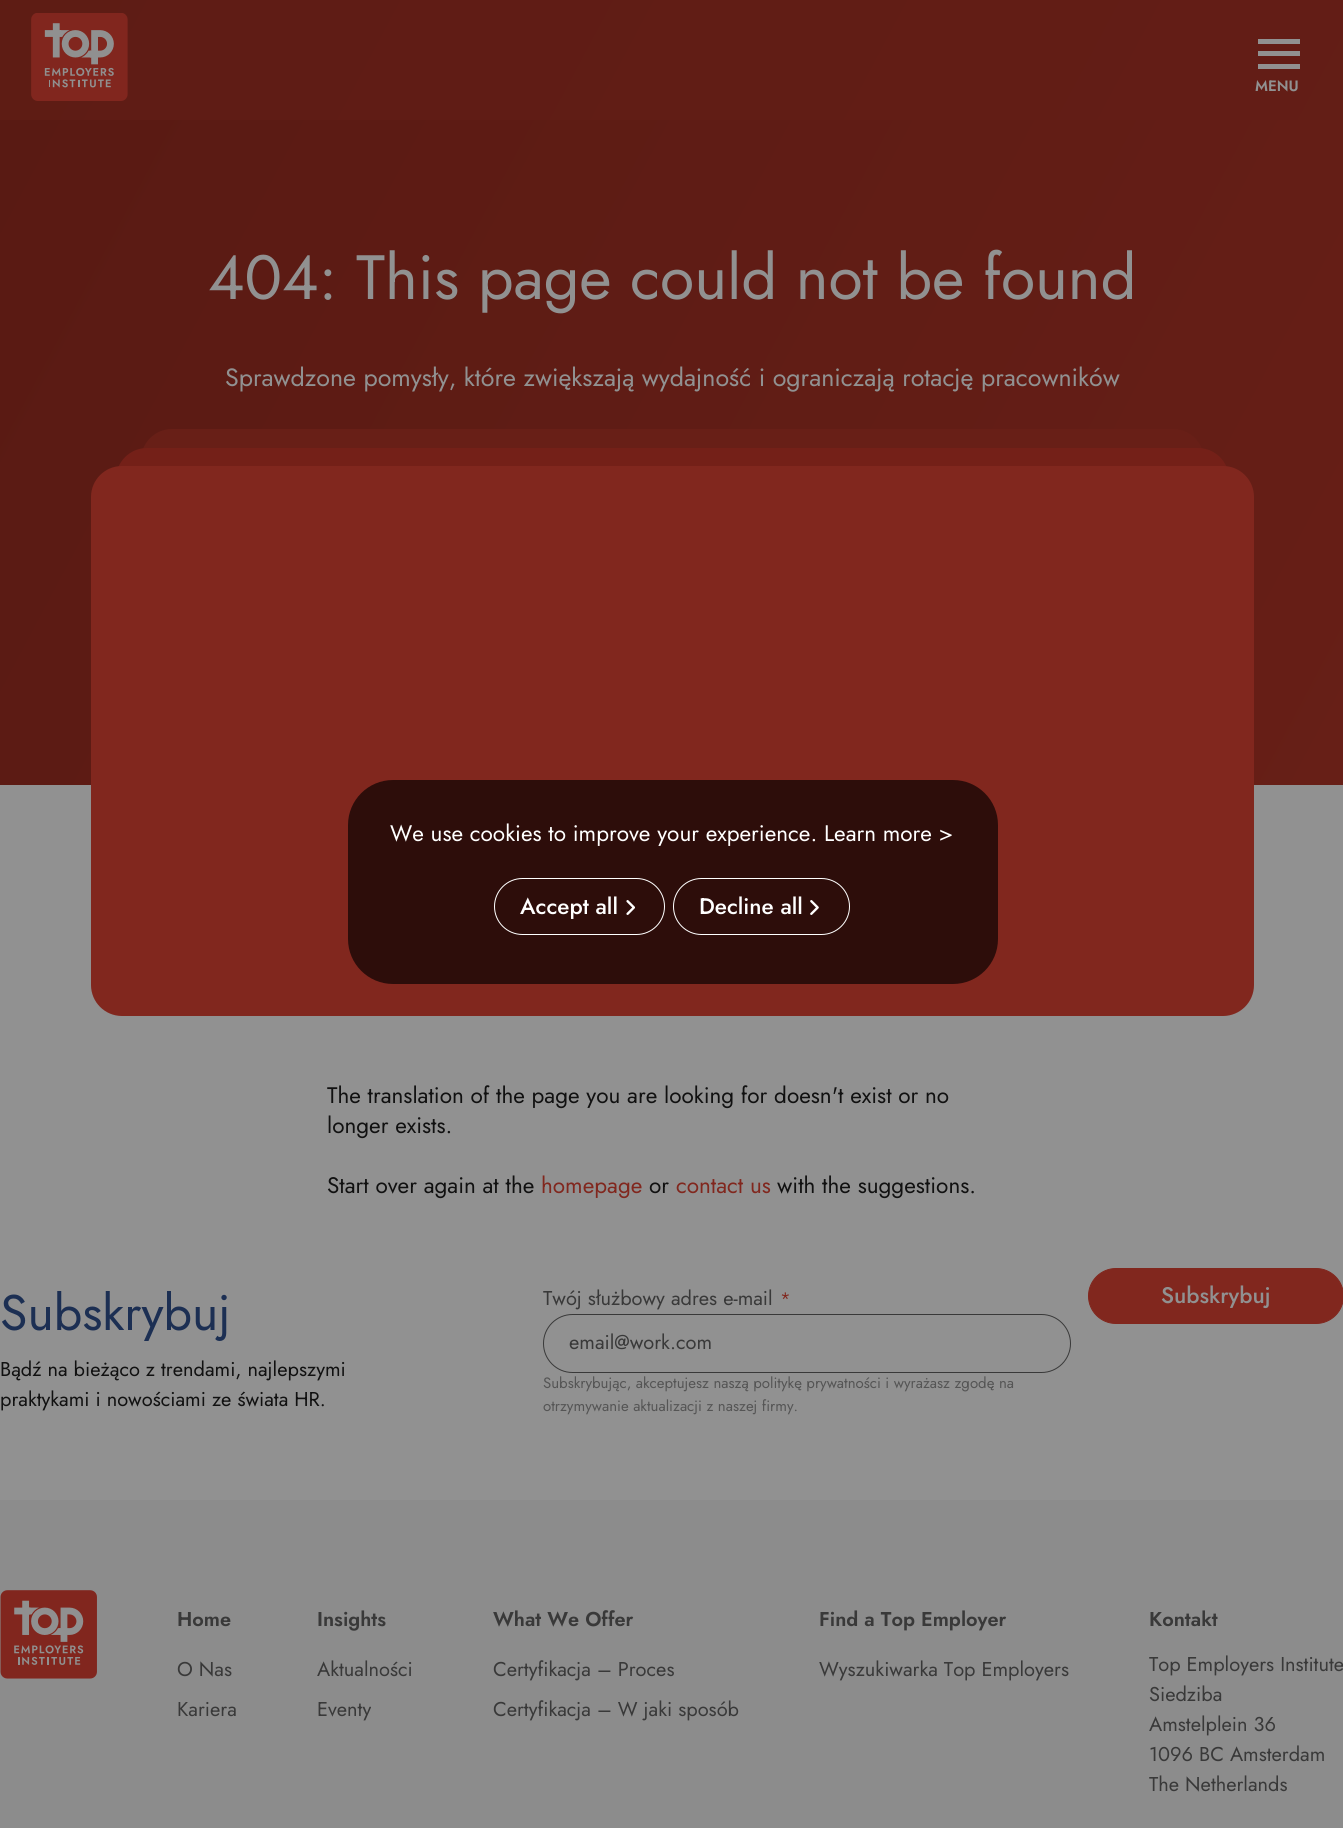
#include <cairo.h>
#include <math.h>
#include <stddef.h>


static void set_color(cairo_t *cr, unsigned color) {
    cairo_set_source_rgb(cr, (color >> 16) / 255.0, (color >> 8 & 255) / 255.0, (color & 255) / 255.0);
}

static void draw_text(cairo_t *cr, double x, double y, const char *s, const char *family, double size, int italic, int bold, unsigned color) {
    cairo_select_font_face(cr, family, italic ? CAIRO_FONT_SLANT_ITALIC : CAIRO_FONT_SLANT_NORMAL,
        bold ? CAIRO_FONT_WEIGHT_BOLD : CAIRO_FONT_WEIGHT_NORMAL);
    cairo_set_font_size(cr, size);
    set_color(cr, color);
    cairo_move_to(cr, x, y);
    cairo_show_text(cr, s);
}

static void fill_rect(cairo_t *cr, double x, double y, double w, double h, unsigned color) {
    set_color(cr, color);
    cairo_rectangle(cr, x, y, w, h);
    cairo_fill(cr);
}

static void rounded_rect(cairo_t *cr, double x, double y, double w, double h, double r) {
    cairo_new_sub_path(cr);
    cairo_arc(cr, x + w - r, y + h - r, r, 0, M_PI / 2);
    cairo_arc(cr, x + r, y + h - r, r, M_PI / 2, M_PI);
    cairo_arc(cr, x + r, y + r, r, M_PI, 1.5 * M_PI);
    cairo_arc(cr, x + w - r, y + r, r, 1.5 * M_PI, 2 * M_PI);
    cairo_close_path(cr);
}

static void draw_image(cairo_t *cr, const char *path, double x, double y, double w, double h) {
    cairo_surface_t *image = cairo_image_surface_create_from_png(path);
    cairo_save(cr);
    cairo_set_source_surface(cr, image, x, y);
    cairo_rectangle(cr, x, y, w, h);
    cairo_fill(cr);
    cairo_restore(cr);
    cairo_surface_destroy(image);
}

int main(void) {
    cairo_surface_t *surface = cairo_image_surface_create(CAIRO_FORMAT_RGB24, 1343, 1828);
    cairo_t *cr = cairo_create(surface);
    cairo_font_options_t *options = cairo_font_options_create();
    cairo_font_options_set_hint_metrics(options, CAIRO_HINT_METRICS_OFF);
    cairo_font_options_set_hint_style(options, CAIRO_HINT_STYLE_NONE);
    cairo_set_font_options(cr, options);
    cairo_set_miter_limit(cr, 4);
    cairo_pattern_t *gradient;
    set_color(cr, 0x919191);
    cairo_paint(cr);
    gradient = cairo_pattern_create_linear(-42, 198, 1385, 957);
    cairo_pattern_add_color_stop_rgba(gradient, 0, 0.349, 0.102, 0.075, 1);
    cairo_pattern_add_color_stop_rgba(gradient, 1, 0.408, 0.122, 0.09, 1);
    cairo_set_source(cr, gradient);
    cairo_pattern_destroy(gradient);
    cairo_rectangle(cr, 0, 120, 1343, 665);
    cairo_fill(cr);
    gradient = cairo_pattern_create_linear(-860, -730, 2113, 850);
    cairo_pattern_add_color_stop_rgba(gradient, 0, 0.349, 0.102, 0.075, 1);
    cairo_pattern_add_color_stop_rgba(gradient, 1, 0.408, 0.122, 0.09, 1);
    cairo_set_source(cr, gradient);
    cairo_pattern_destroy(gradient);
    cairo_rectangle(cr, 0, 0, 1343, 120);
    cairo_fill(cr);
    draw_image(cr, "assets/img1.png", 31, 13, 97, 88);
    fill_rect(cr, 1258, 39, 42, 5, 0x919191);
    fill_rect(cr, 1258, 51, 42, 5, 0x919191);
    fill_rect(cr, 1258, 64, 42, 5, 0x919191);
    draw_text(cr, 1255, 91, "MENU", "Jost SemiBold", 15, 0, 0, 0x919191);
    draw_text(cr, 208, 299, "404: This page could not be found", "Jost", 62.5, 0, 0, 0x919191);
    draw_text(cr, 225, 386, "Sprawdzone pomysły, które zwiększają wydajność i ograniczają rotację pracowników", "Jost", 25, 0, 0, 0x919191);
    set_color(cr, 0x681F17);
    rounded_rect(cr, 141, 429, 1063, 550, 31);
    cairo_fill(cr);
    set_color(cr, 0x742018);
    rounded_rect(cr, 116, 448, 1113, 550, 31);
    cairo_fill(cr);
    set_color(cr, 0x81271E);
    rounded_rect(cr, 91, 466, 1163, 550, 31);
    cairo_fill(cr);
    set_color(cr, 0x2D0D0A);
    rounded_rect(cr, 348, 780, 650, 204, 45);
    cairo_fill(cr);
    draw_text(cr, 390, 841, "We use cookies to improve your experience. Learn more >", "Jost", 22.5, 0, 0, 0xFFFFFF);
    rounded_rect(cr, 494.5, 878.5, 170, 56, 28);
    cairo_set_line_width(cr, 1);
    cairo_stroke(cr);
    draw_text(cr, 520, 914, "Accept all", "Jost Medium", 22.5, 0, 0, 0xFFFFFF);
    draw_image(cr, "assets/img2.png", 626, 900, 9, 15);
    rounded_rect(cr, 673.5, 878.5, 176, 56, 28);
    cairo_stroke(cr);
    draw_text(cr, 699, 914, "Decline all", "Jost Medium", 22.5, 0, 0, 0xFFFFFF);
    draw_image(cr, "assets/img3.png", 810, 900, 9, 15);
    draw_text(cr, 327, 1103, "The translation of the page you are looking for doesn't exist or no", "Jost", 22.5, 0, 0, 0x111111);
    draw_text(cr, 327, 1133, "longer exists.", "Jost", 22.5, 0, 0, 0x111111);
    draw_text(cr, 327, 1193, "Start over again at the", "Jost", 22.5, 0, 0, 0x111111);
    draw_text(cr, 541, 1193, "homepage", "Jost", 22.5, 0, 0, 0x81271E);
    draw_text(cr, 649, 1193, "or", "Jost", 22.5, 0, 0, 0x111111);
    draw_text(cr, 676, 1193, "contact us", "Jost", 22.5, 0, 0, 0x81271E);
    draw_text(cr, 777, 1193, "with the suggestions.", "Jost", 22.5, 0, 0, 0x111111);
    draw_text(cr, 0, 1330, "Subskrybuj", "Jost", 50, 0, 0, 0x1C2F53);
    draw_text(cr, 0, 1376, "Bądź na bieżąco z trendami, najlepszymi", "Jost", 20, 0, 0, 0x111111);
    draw_text(cr, 0, 1406, "praktykami i nowościami ze świata HR.", "Jost", 20, 0, 0, 0x111111);
    draw_text(cr, 543, 1305, "Twój służbowy adres e-mail", "Jost", 20, 0, 0, 0x393939);
    draw_text(cr, 780, 1305, "*", "Jost", 18, 0, 0, 0x81271E);
    rounded_rect(cr, 543.5, 1314.5, 527, 58, 29);
    set_color(cr, 0x393939);
    cairo_stroke(cr);
    draw_text(cr, 569, 1349, "email@work.com", "Jost", 20, 0, 0, 0x393939);
    draw_text(cr, 543, 1388, "Subskrybując, akceptujesz naszą politykę prywatności i wyrażasz zgodę na", "Jost", 15, 0, 0, 0x555555);
    draw_text(cr, 543, 1411, "otrzymywanie aktualizacji z naszej firmy.", "Jost", 15, 0, 0, 0x555555);
    set_color(cr, 0x81271E);
    rounded_rect(cr, 1088.5, 1268.5, 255, 55, 27.5);
    cairo_fill_preserve(cr);
    cairo_stroke(cr);
    draw_text(cr, 1161, 1303, "Subskrybuj", "Jost Medium", 22.5, 0, 0, 0x919191);
    fill_rect(cr, 0, 1500, 1343, 328, 0x8C8C8C);
    draw_image(cr, "assets/img4.png", 0, 1590, 97, 89);
    draw_text(cr, 177, 1626, "Home", "Jost SemiBold", 20, 0, 0, 0x393939);
    draw_text(cr, 177, 1676, "O Nas", "Jost", 20, 0, 0, 0x393939);
    draw_text(cr, 177, 1716, "Kariera", "Jost", 20, 0, 0, 0x393939);
    draw_text(cr, 317, 1626, "Insights", "Jost SemiBold", 20, 0, 0, 0x393939);
    draw_text(cr, 317, 1676, "Aktualności", "Jost", 20, 0, 0, 0x393939);
    draw_text(cr, 317, 1716, "Eventy", "Jost", 20, 0, 0, 0x393939);
    draw_text(cr, 493, 1626, "What We Offer", "Jost SemiBold", 20, 0, 0, 0x393939);
    draw_text(cr, 493, 1676, "Certyfikacja – Proces", "Jost", 20, 0, 0, 0x393939);
    draw_text(cr, 493, 1716, "Certyfikacja – W jaki sposób", "Jost", 20, 0, 0, 0x393939);
    draw_text(cr, 819, 1626, "Find a Top Employer", "Jost SemiBold", 20, 0, 0, 0x393939);
    draw_text(cr, 819, 1676, "Wyszukiwarka Top Employers", "Jost", 20, 0, 0, 0x393939);
    draw_text(cr, 1149, 1626, "Kontakt", "Jost SemiBold", 20, 0, 0, 0x393939);
    draw_text(cr, 1149, 1671, "Top Employers Institute", "Jost", 20, 0, 0, 0x393939);
    draw_text(cr, 1149, 1701, "Siedziba", "Jost", 20, 0, 0, 0x393939);
    draw_text(cr, 1149, 1731, "Amstelplein 36", "Jost", 20, 0, 0, 0x393939);
    draw_text(cr, 1149, 1761, "1096 BC Amsterdam", "Jost", 20, 0, 0, 0x393939);
    draw_text(cr, 1149, 1791, "The Netherlands", "Jost", 20, 0, 0, 0x393939);
    cairo_surface_write_to_png(surface, "output.png");
    cairo_font_options_destroy(options);
    cairo_destroy(cr);
    cairo_surface_destroy(surface);
    return 0;
}
